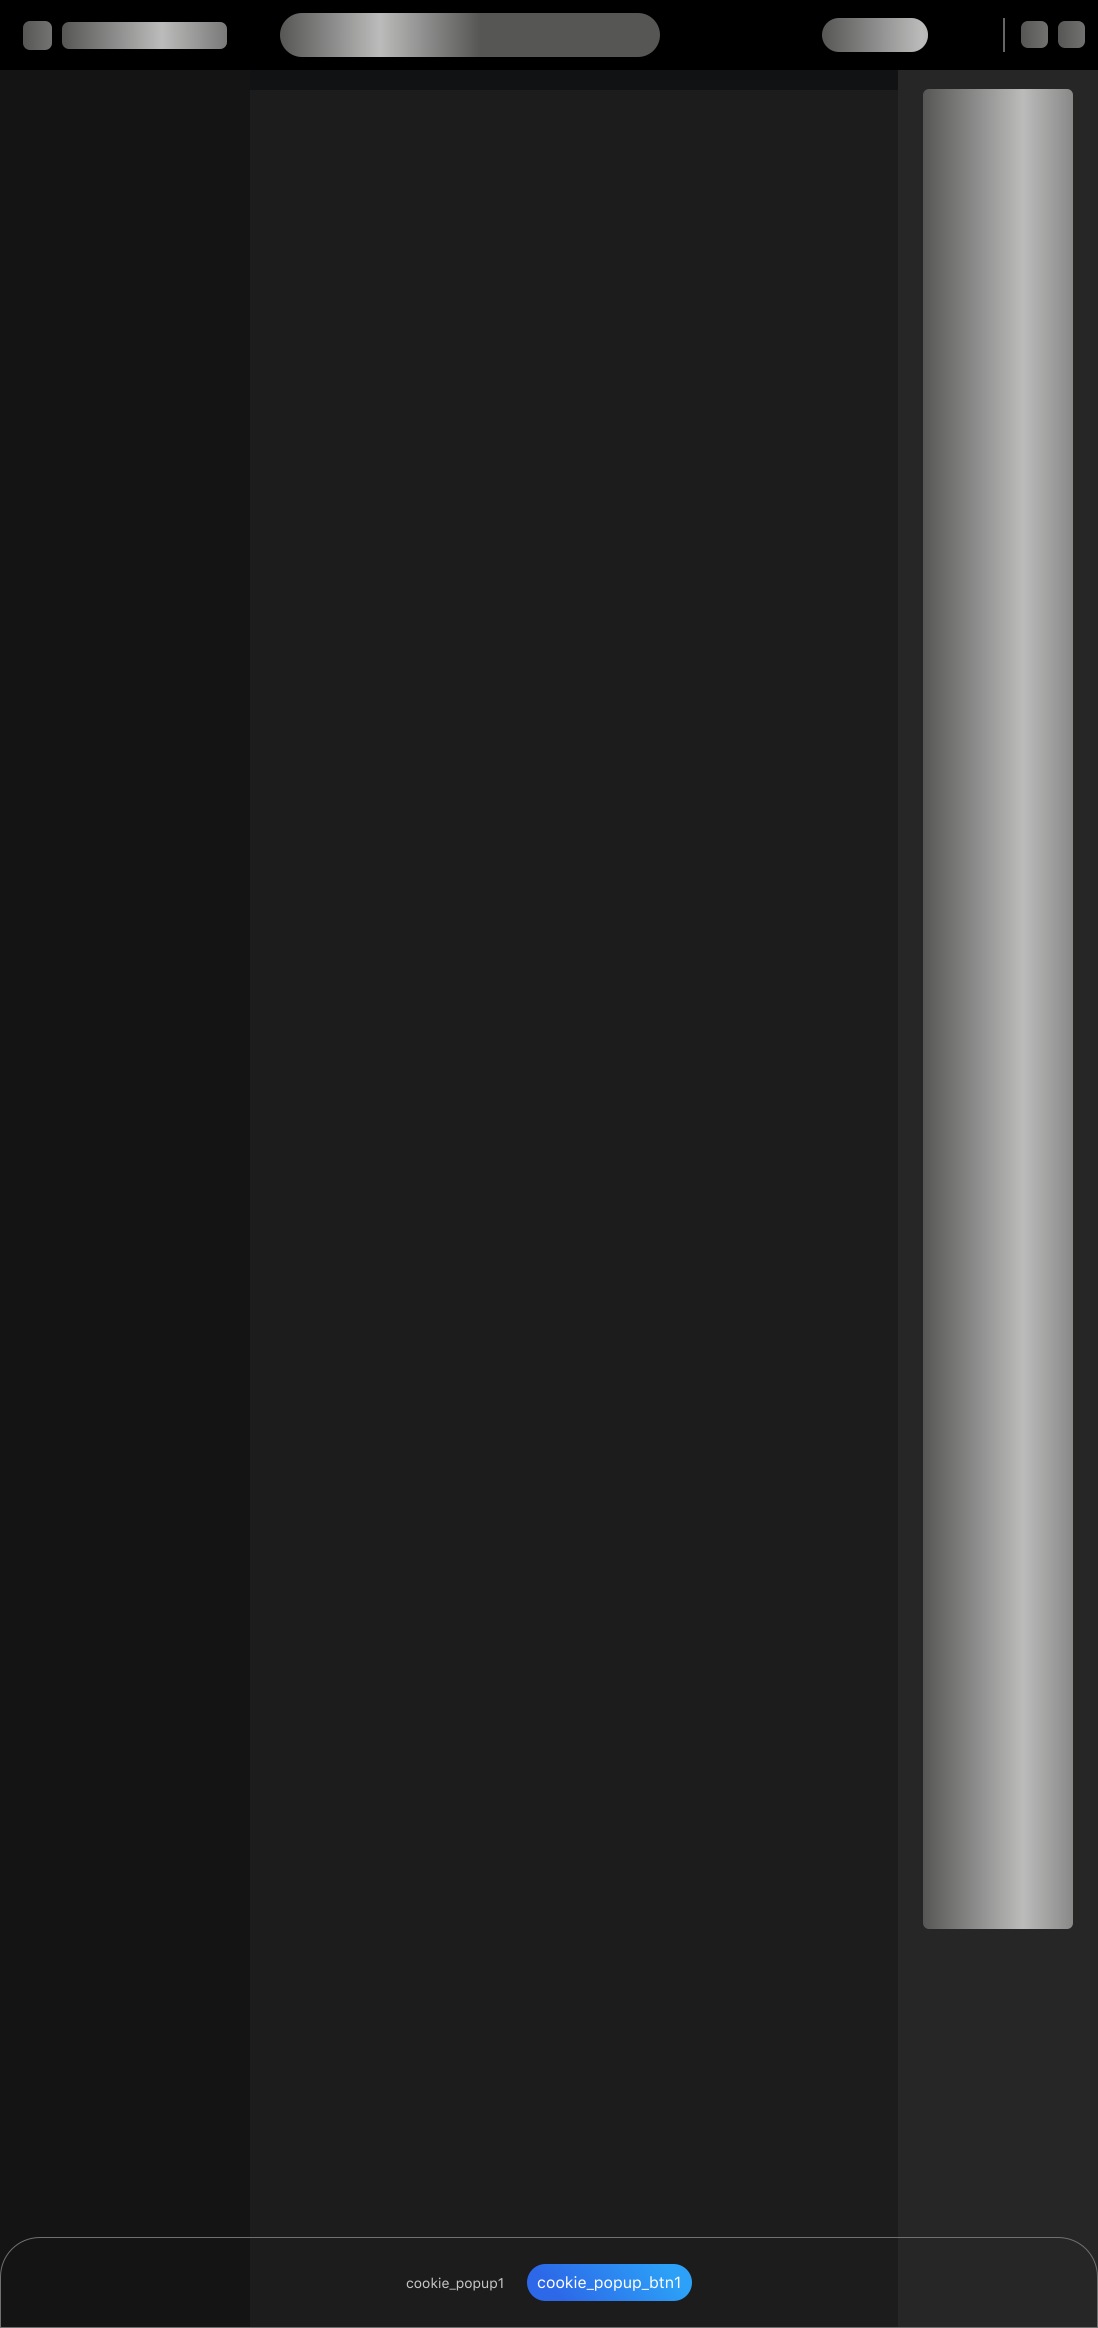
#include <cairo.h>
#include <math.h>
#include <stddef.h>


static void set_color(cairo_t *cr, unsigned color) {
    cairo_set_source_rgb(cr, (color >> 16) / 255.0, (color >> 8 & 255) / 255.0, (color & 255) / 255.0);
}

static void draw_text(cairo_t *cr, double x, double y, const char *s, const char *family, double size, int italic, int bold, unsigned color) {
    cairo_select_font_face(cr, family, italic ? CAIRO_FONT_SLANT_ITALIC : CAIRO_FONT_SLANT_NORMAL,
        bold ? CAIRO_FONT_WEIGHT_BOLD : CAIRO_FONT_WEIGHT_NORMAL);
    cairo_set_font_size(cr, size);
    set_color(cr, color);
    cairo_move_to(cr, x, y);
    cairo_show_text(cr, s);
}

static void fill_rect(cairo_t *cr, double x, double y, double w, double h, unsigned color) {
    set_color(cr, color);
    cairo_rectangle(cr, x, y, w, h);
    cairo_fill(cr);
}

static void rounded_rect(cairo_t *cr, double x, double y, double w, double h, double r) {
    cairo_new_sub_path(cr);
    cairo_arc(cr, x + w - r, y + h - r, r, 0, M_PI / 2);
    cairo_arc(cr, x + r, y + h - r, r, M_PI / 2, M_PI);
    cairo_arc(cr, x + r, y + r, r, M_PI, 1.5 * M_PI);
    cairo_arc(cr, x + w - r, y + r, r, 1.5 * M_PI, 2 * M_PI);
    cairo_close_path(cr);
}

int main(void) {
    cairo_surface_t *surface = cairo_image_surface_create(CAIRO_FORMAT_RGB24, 1098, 2328);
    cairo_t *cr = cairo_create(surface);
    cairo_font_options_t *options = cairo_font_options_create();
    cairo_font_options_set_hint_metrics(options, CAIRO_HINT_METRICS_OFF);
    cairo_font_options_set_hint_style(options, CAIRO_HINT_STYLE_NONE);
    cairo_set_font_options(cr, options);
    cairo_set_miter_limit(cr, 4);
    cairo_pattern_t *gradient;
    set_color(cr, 0x000000);
    cairo_paint(cr);
    set_color(cr, 0x565655);
    rounded_rect(cr, 23, 21, 29, 29, 7);
    cairo_fill(cr);
    gradient = cairo_pattern_create_linear(23, 36, 223, 35);
    cairo_pattern_add_color_stop_rgba(gradient, 0, 1, 1, 1, 0);
    cairo_pattern_add_color_stop_rgba(gradient, 0.5, 1, 1, 1, 0.6);
    cairo_pattern_add_color_stop_rgba(gradient, 1, 1, 1, 1, 0);
    cairo_set_source(cr, gradient);
    cairo_pattern_destroy(gradient);
    rounded_rect(cr, 23, 21, 29, 29, 7);
    cairo_fill(cr);
    set_color(cr, 0x565655);
    rounded_rect(cr, 62, 22, 165, 27, 7);
    cairo_fill(cr);
    gradient = cairo_pattern_create_linear(62, 36, 262, 35);
    cairo_pattern_add_color_stop_rgba(gradient, 0, 1, 1, 1, 0);
    cairo_pattern_add_color_stop_rgba(gradient, 0.5, 1, 1, 1, 0.6);
    cairo_pattern_add_color_stop_rgba(gradient, 1, 1, 1, 1, 0);
    cairo_set_source(cr, gradient);
    cairo_pattern_destroy(gradient);
    rounded_rect(cr, 62, 22, 165, 27, 7);
    cairo_fill(cr);
    set_color(cr, 0x565655);
    rounded_rect(cr, 280, 13, 380, 44, 22);
    cairo_fill(cr);
    gradient = cairo_pattern_create_linear(280, 35, 480, 35);
    cairo_pattern_add_color_stop_rgba(gradient, 0, 1, 1, 1, 0);
    cairo_pattern_add_color_stop_rgba(gradient, 0.5, 1, 1, 1, 0.6);
    cairo_pattern_add_color_stop_rgba(gradient, 1, 1, 1, 1, 0);
    cairo_set_source(cr, gradient);
    cairo_pattern_destroy(gradient);
    cairo_new_path(cr);
    cairo_move_to(cr, 302, 13);
    cairo_line_to(cr, 480, 13);
    cairo_line_to(cr, 480, 57);
    cairo_line_to(cr, 302, 57);
    cairo_curve_to(cr, 290, 57, 280, 47, 280, 35);
    cairo_curve_to(cr, 280, 23, 290, 13, 302, 13);
    cairo_close_path(cr);
    cairo_fill(cr);
    set_color(cr, 0x565655);
    rounded_rect(cr, 822, 18, 106, 34, 17);
    cairo_fill(cr);
    gradient = cairo_pattern_create_linear(822, 35, 1022, 35);
    cairo_pattern_add_color_stop_rgba(gradient, 0, 1, 1, 1, 0);
    cairo_pattern_add_color_stop_rgba(gradient, 0.5, 1, 1, 1, 0.6);
    cairo_pattern_add_color_stop_rgba(gradient, 1, 1, 1, 1, 0);
    cairo_set_source(cr, gradient);
    cairo_pattern_destroy(gradient);
    rounded_rect(cr, 822, 18, 106, 34, 17);
    cairo_fill(cr);
    fill_rect(cr, 1003, 18, 2, 34, 0x666666);
    set_color(cr, 0x565655);
    rounded_rect(cr, 1021, 21, 27, 27, 7);
    cairo_fill(cr);
    gradient = cairo_pattern_create_linear(1021, 35, 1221, 34);
    cairo_pattern_add_color_stop_rgba(gradient, 0, 1, 1, 1, 0);
    cairo_pattern_add_color_stop_rgba(gradient, 0.5, 1, 1, 1, 0.6);
    cairo_pattern_add_color_stop_rgba(gradient, 1, 1, 1, 1, 0);
    cairo_set_source(cr, gradient);
    cairo_pattern_destroy(gradient);
    rounded_rect(cr, 1021, 21, 27, 27, 7);
    cairo_fill(cr);
    set_color(cr, 0x565655);
    rounded_rect(cr, 1058, 21, 27, 27, 7);
    cairo_fill(cr);
    gradient = cairo_pattern_create_linear(1058, 35, 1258, 34);
    cairo_pattern_add_color_stop_rgba(gradient, 0, 1, 1, 1, 0);
    cairo_pattern_add_color_stop_rgba(gradient, 0.5, 1, 1, 1, 0.6);
    cairo_pattern_add_color_stop_rgba(gradient, 1, 1, 1, 1, 0);
    cairo_set_source(cr, gradient);
    cairo_pattern_destroy(gradient);
    rounded_rect(cr, 1058, 21, 27, 27, 7);
    cairo_fill(cr);
    fill_rect(cr, 0, 70, 250, 2257, 0x141414);
    fill_rect(cr, 250, 90, 648, 2237, 0x1C1C1C);
    fill_rect(cr, 250, 70, 648, 20, 0x111214);
    fill_rect(cr, 898, 70, 200, 2257, 0x262626);
    set_color(cr, 0x565655);
    rounded_rect(cr, 923, 89, 150, 1840, 6);
    cairo_fill(cr);
    gradient = cairo_pattern_create_linear(923, 1009, 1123, 1009);
    cairo_pattern_add_color_stop_rgba(gradient, 0, 1, 1, 1, 0);
    cairo_pattern_add_color_stop_rgba(gradient, 0.5, 1, 1, 1, 0.6);
    cairo_pattern_add_color_stop_rgba(gradient, 1, 1, 1, 1, 0);
    cairo_set_source(cr, gradient);
    cairo_pattern_destroy(gradient);
    rounded_rect(cr, 923, 89, 150, 1840, 6);
    cairo_fill(cr);
    cairo_new_path(cr);
    cairo_move_to(cr, 40, 2237.5);
    cairo_line_to(cr, 1058, 2237.5);
    cairo_curve_to(cr, 1080, 2237.5, 1097.5, 2255, 1097.5, 2277);
    cairo_line_to(cr, 1097.5, 2327.5);
    cairo_line_to(cr, 0.5, 2327.5);
    cairo_line_to(cr, 0.5, 2277);
    cairo_curve_to(cr, 0.5, 2255, 18, 2237.5, 40, 2237.5);
    cairo_close_path(cr);
    set_color(cr, 0x707070);
    cairo_set_line_width(cr, 1);
    cairo_stroke(cr);
    draw_text(cr, 406, 2288, "cookie_popup1", "SF Pro Text", 14, 0, 0, 0xC6C6C6);
    gradient = cairo_pattern_create_linear(551, 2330, 668, 2235);
    cairo_pattern_add_color_stop_rgba(gradient, 0.18, 0.173, 0.408, 0.91, 1);
    cairo_pattern_add_color_stop_rgba(gradient, 0.86, 0.173, 0.631, 0.969, 1);
    cairo_set_source(cr, gradient);
    cairo_pattern_destroy(gradient);
    rounded_rect(cr, 527, 2264, 165, 37, 18.5);
    cairo_fill(cr);
    draw_text(cr, 537, 2288, "cookie_popup_btn1", "SF Pro Text", 16, 0, 0, 0xFFFFFF);
    cairo_surface_write_to_png(surface, "output.png");
    cairo_font_options_destroy(options);
    cairo_destroy(cr);
    cairo_surface_destroy(surface);
    return 0;
}
